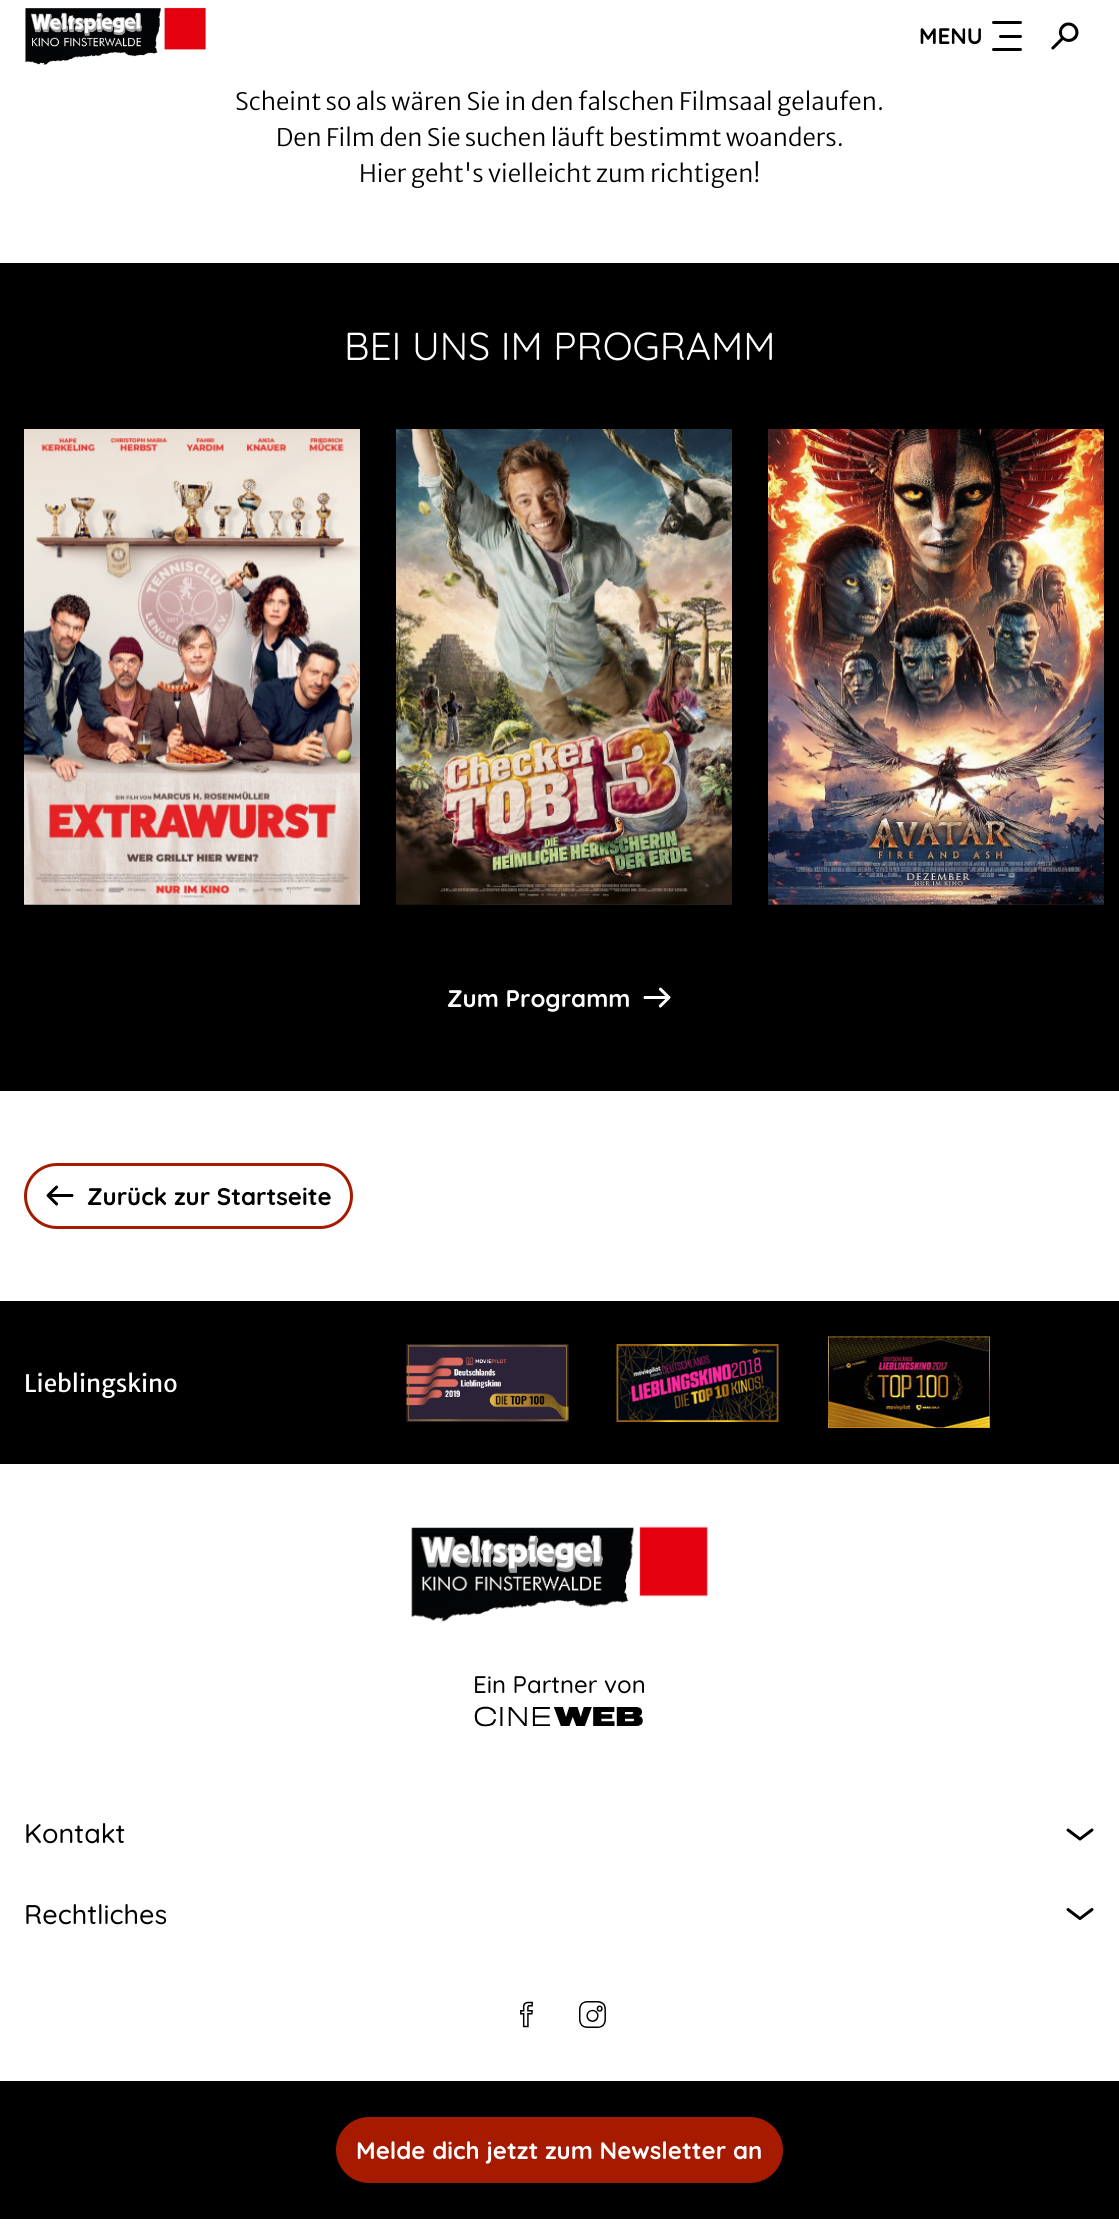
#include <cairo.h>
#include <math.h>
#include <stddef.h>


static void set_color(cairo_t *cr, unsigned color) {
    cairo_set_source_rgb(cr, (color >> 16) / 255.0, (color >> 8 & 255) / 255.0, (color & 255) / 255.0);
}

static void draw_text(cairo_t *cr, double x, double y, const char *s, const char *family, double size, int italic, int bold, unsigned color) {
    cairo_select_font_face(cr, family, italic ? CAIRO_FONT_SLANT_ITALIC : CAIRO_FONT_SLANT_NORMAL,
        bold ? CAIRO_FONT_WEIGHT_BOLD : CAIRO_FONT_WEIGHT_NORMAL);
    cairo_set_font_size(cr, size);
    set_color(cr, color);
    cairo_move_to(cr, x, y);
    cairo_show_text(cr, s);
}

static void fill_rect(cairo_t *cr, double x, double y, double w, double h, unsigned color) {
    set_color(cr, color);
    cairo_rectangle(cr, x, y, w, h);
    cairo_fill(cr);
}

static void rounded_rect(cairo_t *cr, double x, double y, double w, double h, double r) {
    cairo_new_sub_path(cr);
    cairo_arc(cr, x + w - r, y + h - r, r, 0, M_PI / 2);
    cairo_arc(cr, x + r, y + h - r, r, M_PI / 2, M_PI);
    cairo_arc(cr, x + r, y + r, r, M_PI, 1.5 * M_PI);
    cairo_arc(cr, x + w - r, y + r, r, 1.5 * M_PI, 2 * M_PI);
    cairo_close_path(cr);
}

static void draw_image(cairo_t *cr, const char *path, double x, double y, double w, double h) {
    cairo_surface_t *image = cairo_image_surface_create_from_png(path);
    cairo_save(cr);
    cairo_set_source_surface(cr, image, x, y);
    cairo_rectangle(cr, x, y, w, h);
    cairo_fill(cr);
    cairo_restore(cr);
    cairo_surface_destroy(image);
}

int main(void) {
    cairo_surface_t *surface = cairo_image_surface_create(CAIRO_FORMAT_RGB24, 1119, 2226);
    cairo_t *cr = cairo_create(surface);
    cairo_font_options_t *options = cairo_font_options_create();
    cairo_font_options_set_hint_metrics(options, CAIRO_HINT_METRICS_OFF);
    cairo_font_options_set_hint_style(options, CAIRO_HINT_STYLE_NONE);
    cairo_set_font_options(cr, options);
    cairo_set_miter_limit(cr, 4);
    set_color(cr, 0xFFFFFF);
    cairo_paint(cr);
    draw_image(cr, "assets/img1.png", 25, 7, 181, 59);
    draw_text(cr, 919, 44, "MENU", "Quicksand Light", 22.5, 0, 0, 0x000000);
    rounded_rect(cr, 992, 21, 30, 3, 1.5);
    cairo_fill(cr);
    rounded_rect(cr, 999, 35, 23, 3, 1.5);
    cairo_fill(cr);
    rounded_rect(cr, 992, 48, 30, 3, 1.5);
    cairo_fill(cr);
    draw_image(cr, "assets/img2.png", 1051, 22, 28, 28);
    draw_text(cr, 235, 110, "Scheint so als wären Sie in den falschen Filmsaal gelaufen.", "Merriweather Sans Light", 24, 0, 0, 0x000000);
    draw_text(cr, 276, 146, "Den Film den Sie suchen läuft bestimmt woanders.", "Merriweather Sans Light", 24, 0, 0, 0x000000);
    draw_text(cr, 359, 182, "Hier geht's vielleicht zum richtigen!", "Merriweather Sans Light", 24, 0, 0, 0x000000);
    fill_rect(cr, 0, 263, 1119, 828, 0x000000);
    draw_text(cr, 344, 360, "BEI UNS IM PROGRAMM", "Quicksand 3 Light", 39, 0, 0, 0xFFFFFF);
    draw_image(cr, "assets/img4.png", 24, 904, 336, 1);
    draw_image(cr, "assets/img3.png", 24, 429, 336, 476);
    draw_image(cr, "assets/img6.png", 396, 904, 336, 1);
    draw_image(cr, "assets/img5.png", 396, 429, 336, 476);
    draw_image(cr, "assets/img8.png", 768, 904, 336, 1);
    draw_image(cr, "assets/img7.png", 768, 429, 336, 476);
    draw_text(cr, 447, 1007, "Zum Programm", "Quicksand Light", 24, 0, 0, 0xFFFFFF);
    draw_image(cr, "assets/img9.png", 643, 987, 28, 21);
    rounded_rect(cr, 25.5, 1164.5, 326, 63, 31.5);
    set_color(cr, 0xA61B00);
    cairo_set_line_width(cr, 3);
    cairo_stroke(cr);
    draw_image(cr, "assets/img10.png", 46, 1185, 28, 21);
    draw_text(cr, 87, 1205, "Zurück zur Startseite", "Quicksand Light", 24, 0, 0, 0x000000);
    fill_rect(cr, 0, 1301, 1119, 163, 0x000000);
    draw_text(cr, 24, 1392, "Lieblingskino", "Merriweather Sans", 24, 0, 0, 0xFFFFFF);
    draw_image(cr, "assets/img11.png", 406, 1344, 163, 78);
    draw_image(cr, "assets/img12.png", 616, 1344, 163, 78);
    draw_image(cr, "assets/img13.png", 828, 1336, 162, 92);
    draw_image(cr, "assets/img14.png", 411, 1526, 297, 97);
    draw_text(cr, 473, 1693, "Ein Partner von", "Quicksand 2 Light", 24, 0, 0, 0x000000);
    draw_image(cr, "assets/img15.png", 474, 1706, 169, 21);
    draw_text(cr, 24, 1843, "Kontakt", "Quicksand 2 Light", 27, 0, 0, 0x000000);
    draw_image(cr, "assets/img16.png", 1066, 1828, 28, 13);
    draw_text(cr, 24, 1924, "Rechtliches", "Quicksand 2 Light", 27, 0, 0, 0x000000);
    draw_image(cr, "assets/img17.png", 1066, 1908, 28, 12);
    draw_image(cr, "assets/img18.png", 520, 2001, 13, 27);
    draw_image(cr, "assets/img19.png", 579, 2001, 27, 27);
    fill_rect(cr, 0, 2081, 1119, 138, 0x000000);
    set_color(cr, 0xA61B00);
    rounded_rect(cr, 337.5, 2118.5, 444, 63, 31.5);
    cairo_fill_preserve(cr);
    cairo_stroke(cr);
    draw_text(cr, 356, 2159, "Melde dich jetzt zum Newsletter an", "Quicksand Light", 24, 0, 0, 0xFFFFFF);
    cairo_surface_write_to_png(surface, "output.png");
    cairo_font_options_destroy(options);
    cairo_destroy(cr);
    cairo_surface_destroy(surface);
    return 0;
}
